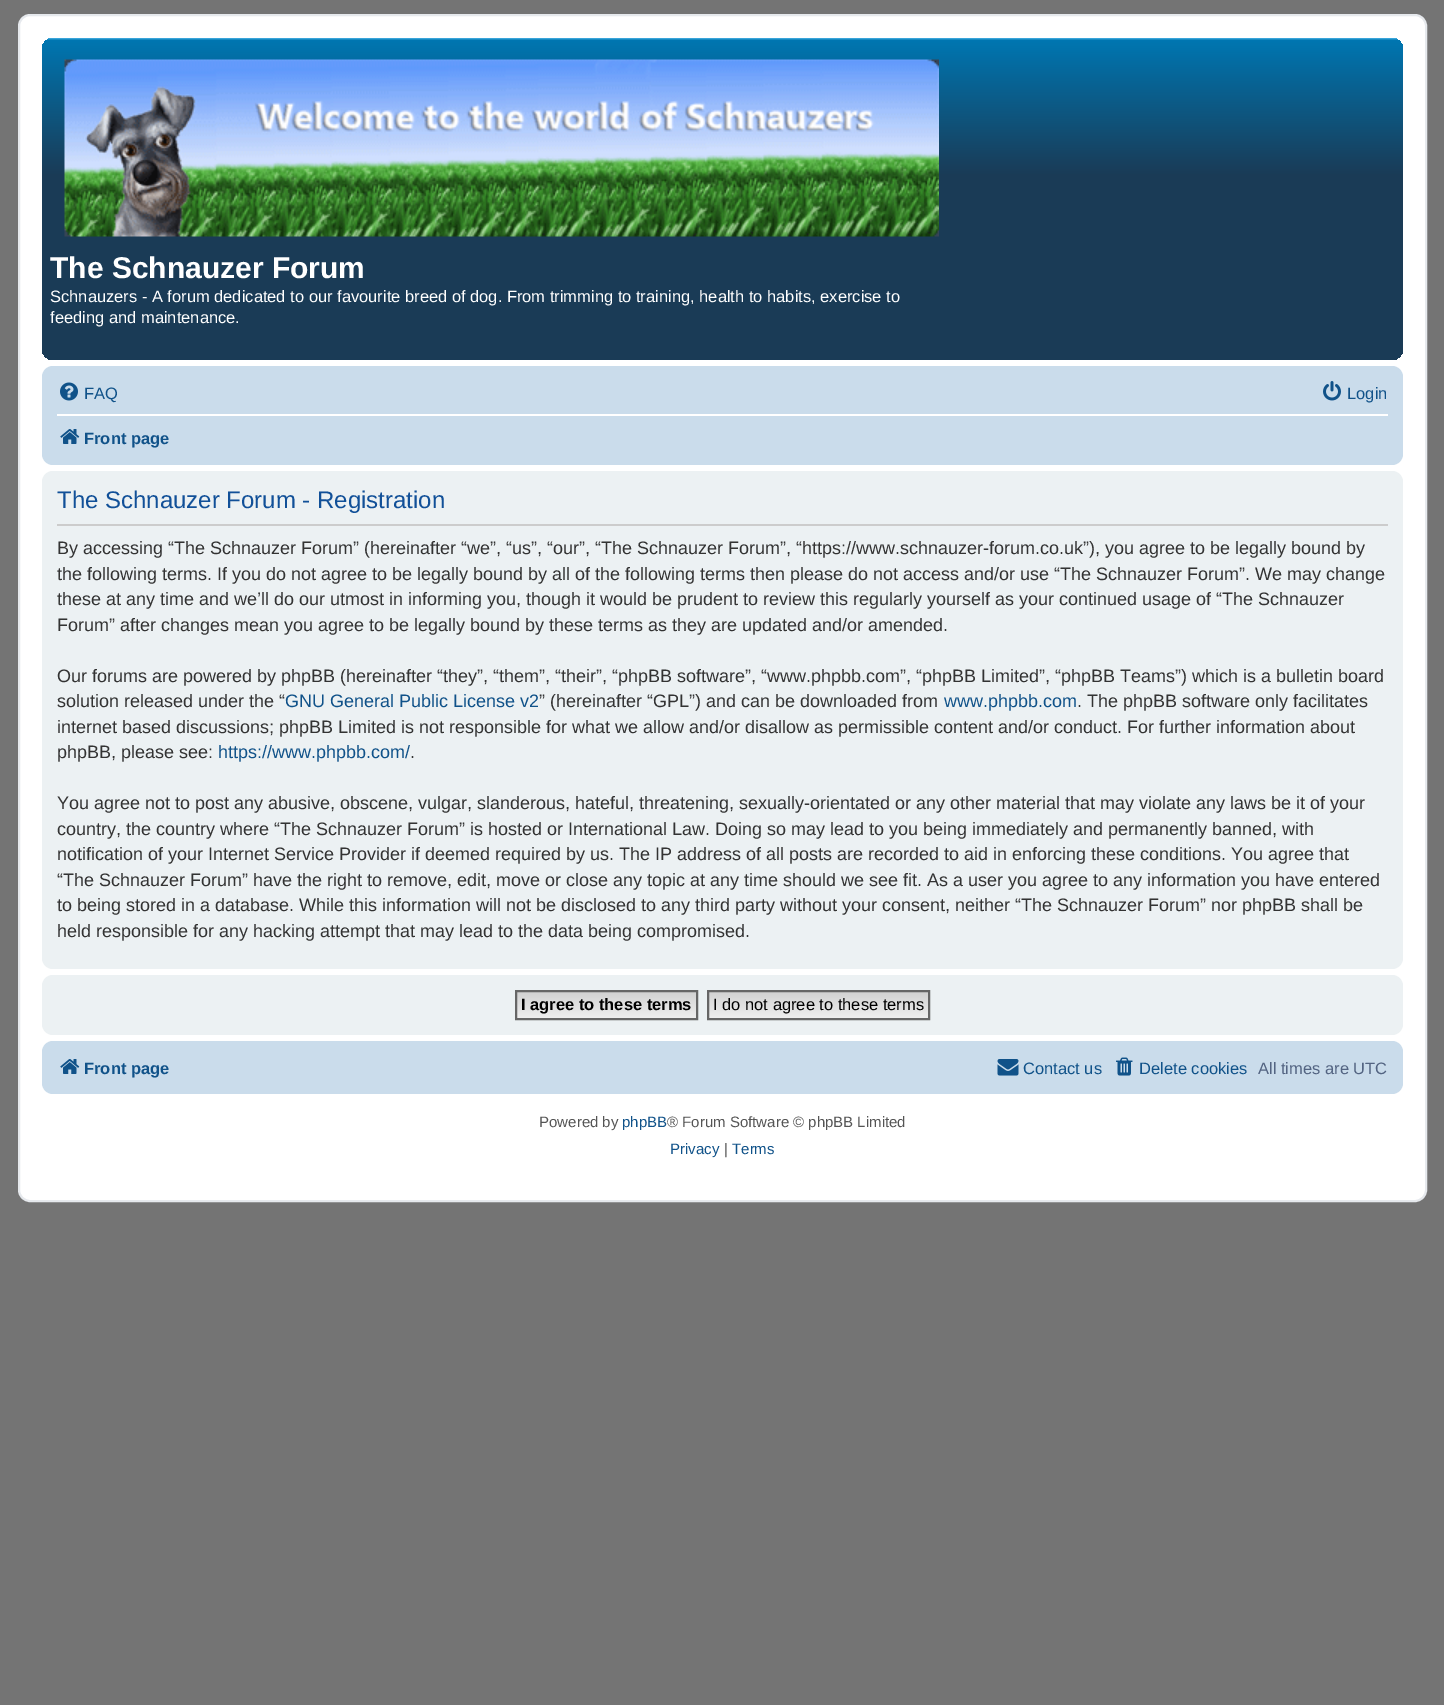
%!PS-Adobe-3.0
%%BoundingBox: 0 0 1444 1705
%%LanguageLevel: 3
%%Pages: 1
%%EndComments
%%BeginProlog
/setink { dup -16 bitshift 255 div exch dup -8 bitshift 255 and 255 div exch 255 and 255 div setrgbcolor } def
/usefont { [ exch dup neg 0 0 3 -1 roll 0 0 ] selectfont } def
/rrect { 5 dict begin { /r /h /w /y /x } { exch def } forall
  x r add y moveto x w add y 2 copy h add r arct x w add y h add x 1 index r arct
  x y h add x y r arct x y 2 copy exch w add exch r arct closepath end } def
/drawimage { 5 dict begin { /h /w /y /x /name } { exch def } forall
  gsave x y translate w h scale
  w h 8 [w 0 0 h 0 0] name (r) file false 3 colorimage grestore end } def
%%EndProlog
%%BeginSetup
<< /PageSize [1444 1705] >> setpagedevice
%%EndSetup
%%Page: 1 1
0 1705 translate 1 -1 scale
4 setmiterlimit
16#747474 setink
0 0 1444 1705 rectfill
16#FFFFFF setink
19 15 1407 1186 11 rrect gsave fill grestore
16#E6E9ED setink
2 setlinewidth
stroke
gsave 42 38 1361 322 11 rrect clip newpath
<< /ShadingType 2 /ColorSpace /DeviceRGB /Coords [722 37 722 360] /Extend [true true] /Function << /FunctionType 3 /Domain [0 1] /Functions [<< /FunctionType 2 /Domain [0 1] /C0 [0.416 0.808 1] /C1 [0 0.463 0.694] /N 1 >> << /FunctionType 2 /Domain [0 1] /C0 [0 0.463 0.694] /C1 [0.102 0.231 0.337] /N 1 >> << /FunctionType 2 /Domain [0 1] /C0 [0.102 0.231 0.337] /C1 [0.102 0.231 0.337] /N 1 >>] /Bounds [0.01 0.43] /Encode [0 1 0 1 0 1] >> >> shfill grestore
(img1.raw) 64 59 875 178 drawimage
/LiberationSans-Bold 30 usefont
16#FFFFFF setink
50 278 moveto (The Schnauzer Forum) show
/LiberationSans-Regular 16.5 usefont
50 302 moveto (Schnauzers - A forum dedicated to our favourite breed of dog. From trimming to training, health to habits, exercise to) show
50 323 moveto (feeding and maintenance.) show
16#CADCEB setink
42 366 1361 99 11 rrect fill
(img2.raw) 60 382 18 19 drawimage
16#105289 setink
84 399 moveto (FAQ) show
(img3.raw) 1323 381 18 20 drawimage
1347 399 moveto (Login) show
16#FFFFFF setink
57 414 1331 2 rectfill
(img4.raw) 60 429 20 15 drawimage
/LiberationSans-Bold 16.5 usefont
16#105289 setink
84 444 moveto (Front page) show
16#ECF1F3 setink
42 471 1361 498 11 rrect fill
16#CCCCCC setink
57 524 1331 2 rectfill
/LiberationSans-Regular 24 usefont
16#115098 setink
57 508 moveto (The Schnauzer Forum - Registration) show
/LiberationSans-Regular 18 usefont
16#333333 setink
[
    [(By accessing “The Schnauzer Forum” \(hereinafter “we”, “us”, “our”, “The Schnauzer Forum”, “https://www.schnauzer-forum.co.uk”\), you agree to be legally bound by) 57 554]
    [(the following terms. If you do not agree to be legally bound by all of the following terms then please do not access and/or use “The Schnauzer Forum”. We may change) 57 580]
    [(these at any time and we’ll do our utmost in informing you, though it would be prudent to review this regularly yourself as your continued usage of “The Schnauzer) 57 605]
    [(Forum” after changes mean you agree to be legally bound by these terms as they are updated and/or amended.) 57 631]
    [(Our forums are powered by phpBB \(hereinafter “they”, “them”, “their”, “phpBB software”, “www.phpbb.com”, “phpBB Limited”, “phpBB Teams”\) which is a bulletin board) 57 682]
    [(solution released under the “) 57 707]
] { aload pop moveto show } forall
16#105289 setink
285 707 moveto (GNU General Public License v2) show
16#333333 setink
539 707 moveto (” \(hereinafter “GPL”\) and can be downloaded from) show
16#105289 setink
944 707 moveto (www.phpbb.com) show
16#333333 setink
[
    [(. The phpBB software only facilitates) 1077 707]
    [(internet based discussions; phpBB Limited is not responsible for what we allow and/or disallow as permissible content and/or conduct. For further information about) 57 733]
    [(phpBB, please see:) 57 758]
] { aload pop moveto show } forall
16#105289 setink
218 758 moveto (https://www.phpbb.com/) show
16#333333 setink
[
    [(.) 410 758]
    [(You agree not to post any abusive, obscene, vulgar, slanderous, hateful, threatening, sexually-orientated or any other material that may violate any laws be it of your) 57 809]
    [(country, the country where “The Schnauzer Forum” is hosted or International Law. Doing so may lead to you being immediately and permanently banned, with) 57 835]
    [(notification of your Internet Service Provider if deemed required by us. The IP address of all posts are recorded to aid in enforcing these conditions. You agree that) 57 860]
    [(“The Schnauzer Forum” have the right to remove, edit, move or close any topic at any time should we see fit. As a user you agree to any information you have entered) 57 886]
    [(to being stored in a database. While this information will not be disclosed to any third party without your consent, neither “The Schnauzer Forum” nor phpBB shall be) 57 911]
    [(held responsible for any hacking attempt that may lead to the data being compromised.) 57 937]
] { aload pop moveto show } forall
16#ECF1F3 setink
42 975 1361 60 11 rrect fill
gsave 517 992 moveto 696 992 lineto 696 1018 lineto 517 1018 lineto closepath clip newpath
<< /ShadingType 2 /ColorSpace /DeviceRGB /Coords [606 992 606 1019] /Extend [true true] /Function << /FunctionType 2 /Domain [0 1] /C0 [0.824 0.824 0.824] /C1 [0.937 0.937 0.937] /N 1 >> >> shfill grestore
16#666666 setink
516 991 181 28 rectstroke
/LiberationSans-Bold 16.5 usefont
16#000000 setink
521 1010 moveto (I agree to these terms) show
gsave 709 992 moveto 928 992 lineto 928 1018 lineto 709 1018 lineto closepath clip newpath
<< /ShadingType 2 /ColorSpace /DeviceRGB /Coords [818 992 818 1019] /Extend [true true] /Function << /FunctionType 2 /Domain [0 1] /C0 [0.824 0.824 0.824] /C1 [0.937 0.937 0.937] /N 1 >> >> shfill grestore
16#666666 setink
708 991 221 28 rectstroke
/LiberationSans-Regular 16.5 usefont
16#000000 setink
713 1010 moveto (I do not agree to these terms) show
16#CADCEB setink
42 1041 1361 53 11 rrect fill
(img4.raw) 60 1059 20 15 drawimage
/LiberationSans-Bold 16.5 usefont
16#105289 setink
84 1074 moveto (Front page) show
(img5.raw) 997 1059 22 17 drawimage
/LiberationSans-Regular 16.5 usefont
1023 1074 moveto (Contact us) show
(img6.raw) 1116 1057 17 19 drawimage
1139 1074 moveto (Delete cookies) show
16#536482 setink
1258 1074 moveto (All times are UTC) show
/LiberationSans-Regular 15 usefont
16#555555 setink
539 1127 moveto (Powered by) show
16#105289 setink
622 1127 moveto (phpBB) show
16#555555 setink
667 1127 moveto (® Forum Software © phpBB Limited) show
16#105289 setink
670 1154 moveto (Privacy) show
16#555555 setink
724 1154 moveto (|) show
16#105289 setink
732 1154 moveto (Terms) show
showpage
%%EOF
